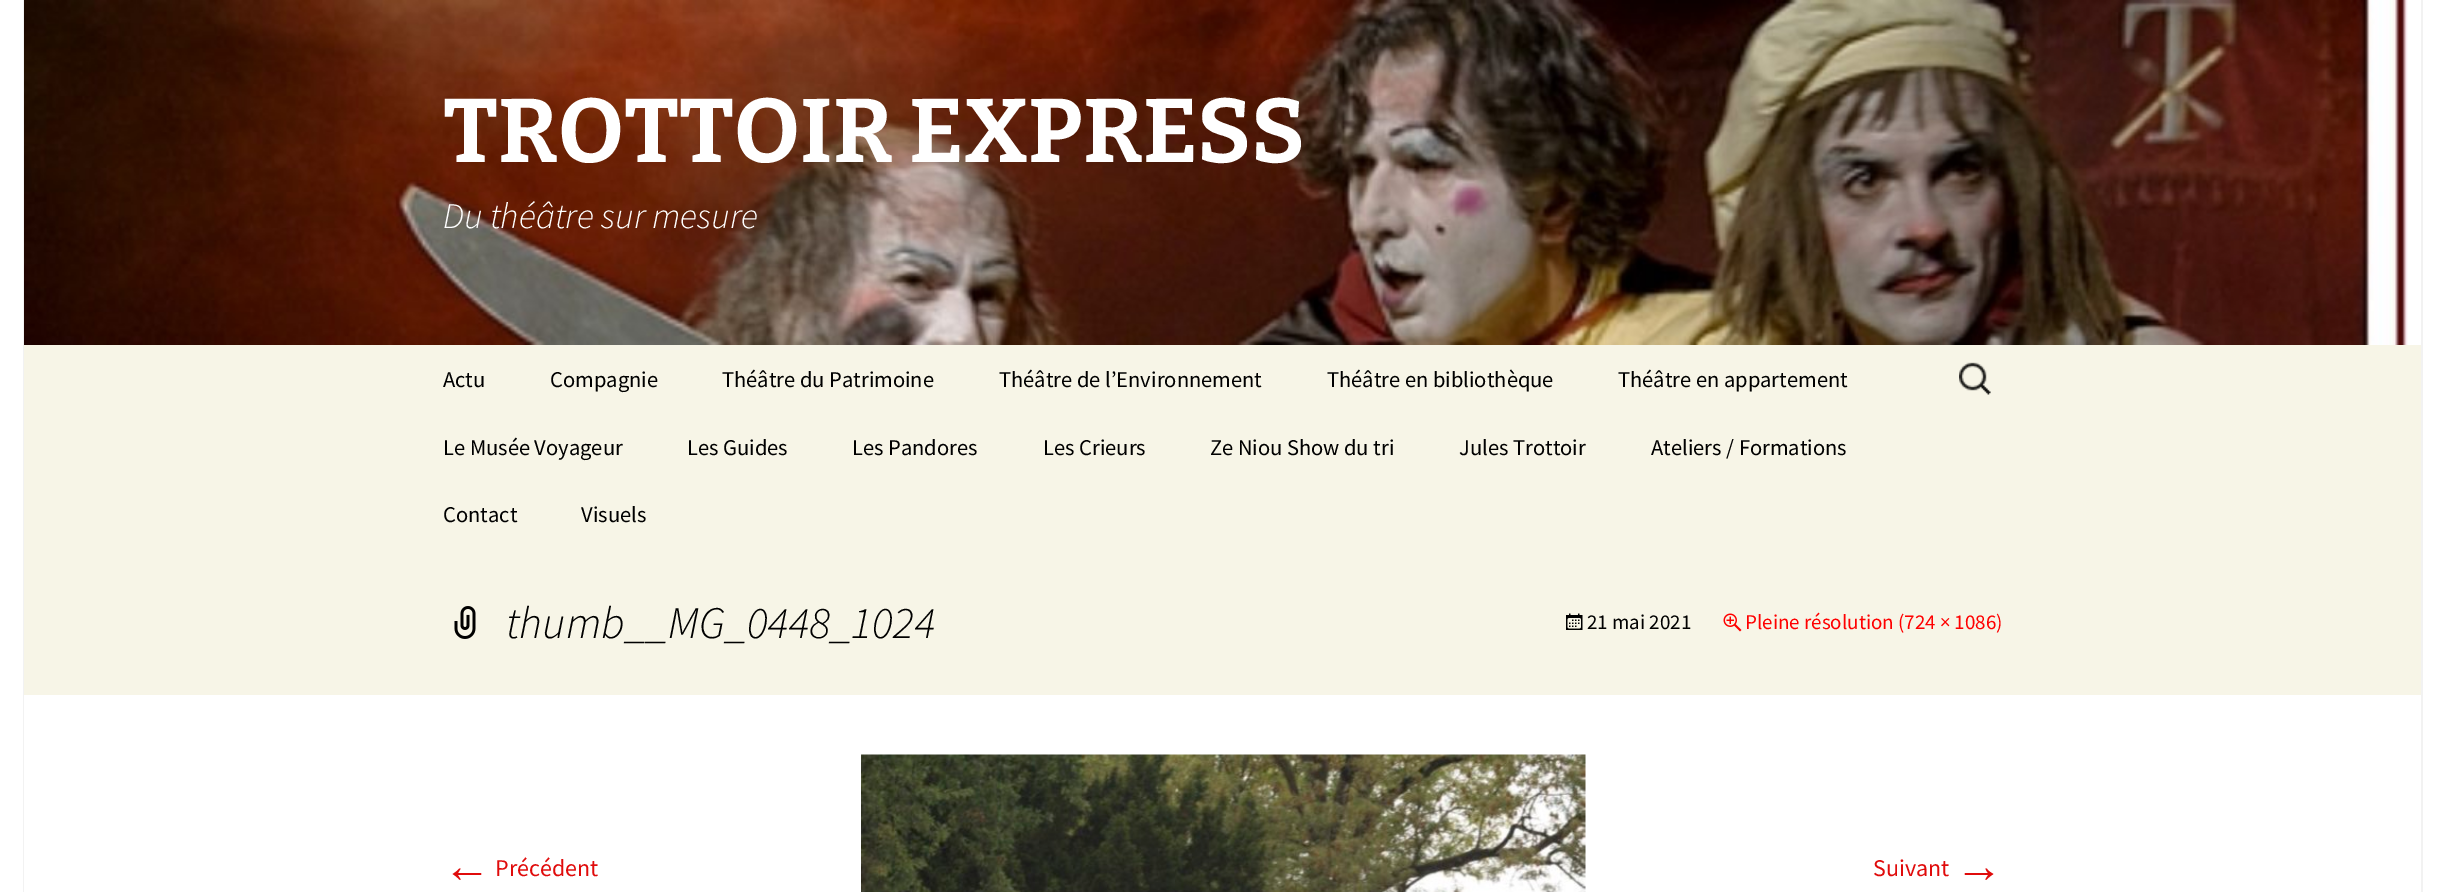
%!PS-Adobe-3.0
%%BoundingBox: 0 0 2444 892
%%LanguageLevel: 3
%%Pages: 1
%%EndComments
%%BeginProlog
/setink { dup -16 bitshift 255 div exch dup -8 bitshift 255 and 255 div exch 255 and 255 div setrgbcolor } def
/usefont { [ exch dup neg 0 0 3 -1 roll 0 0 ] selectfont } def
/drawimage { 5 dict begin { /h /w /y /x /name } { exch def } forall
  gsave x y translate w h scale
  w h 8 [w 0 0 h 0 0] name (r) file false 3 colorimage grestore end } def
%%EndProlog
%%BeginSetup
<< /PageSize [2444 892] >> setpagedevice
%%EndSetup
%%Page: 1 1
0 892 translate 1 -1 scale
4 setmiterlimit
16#FFFFFF setink
0 0 2444 892 rectfill
16#F2F2F2 setink
2421 0 2 892 rectfill
23 0 1 892 rectfill
(img1.raw) 24 0 2384 345 drawimage
/Bitter-Bold 90 usefont
16#FFFFFF setink
443 162 moveto (TROTTOIR EXPRESS) show
/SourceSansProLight-LightItalic 36 usefont
443 228 moveto (Du théâtre sur mesure) show
16#F7F5E7 setink
24 345 2397 350 rectfill
/SourceSansPro-Regular 22.5 usefont
16#000000 setink
[
    [(Actu) 443 387]
    [(Compagnie) 550 387]
    [(Théâtre du Patrimoine) 722 387]
    [(Théâtre de l’Environnement) 999 387]
    [(Théâtre en bibliothèque) 1327 387]
    [(Théâtre en appartement) 1618 387]
    [(Le Musée Voyageur) 443 455]
    [(Les Guides) 687 455]
    [(Les Pandores) 852 455]
    [(Les Crieurs) 1043 455]
    [(Ze Niou Show du tri) 1210 455]
    [(Jules Trottoir) 1459 455]
    [(Ateliers / Formations) 1651 455]
    [(Contact) 443 522]
    [(Visuels) 581 522]
] { aload pop moveto show } forall
(img2.raw) 1959 362 32 33 drawimage
(img3.raw) 454 606 22 33 drawimage
/SourceSansProLight-LightItalic 45 usefont
506 638 moveto (thumb__MG_0448_1024) show
(img4.raw) 1566 613 17 17 drawimage
/SourceSansPro-Regular 21 usefont
1587 629 moveto (21 mai 2021) show
(img5.raw) 1723 613 19 19 drawimage
16#FF0000 setink
1745 629 moveto (Pleine résolution \(724 × 1086\)) show
(img6.raw) 861 754 725 138 drawimage
/LiberationSans-Regular 48 usefont
16#E00B0B setink
443 882 moveto (←) show
/SourceSansPro-Regular 24 usefont
495 876 moveto (Précédent) show
1873 876 moveto (Suivant) show
/LiberationSans-Regular 48 usefont
1955 882 moveto (→) show
showpage
%%EOF
